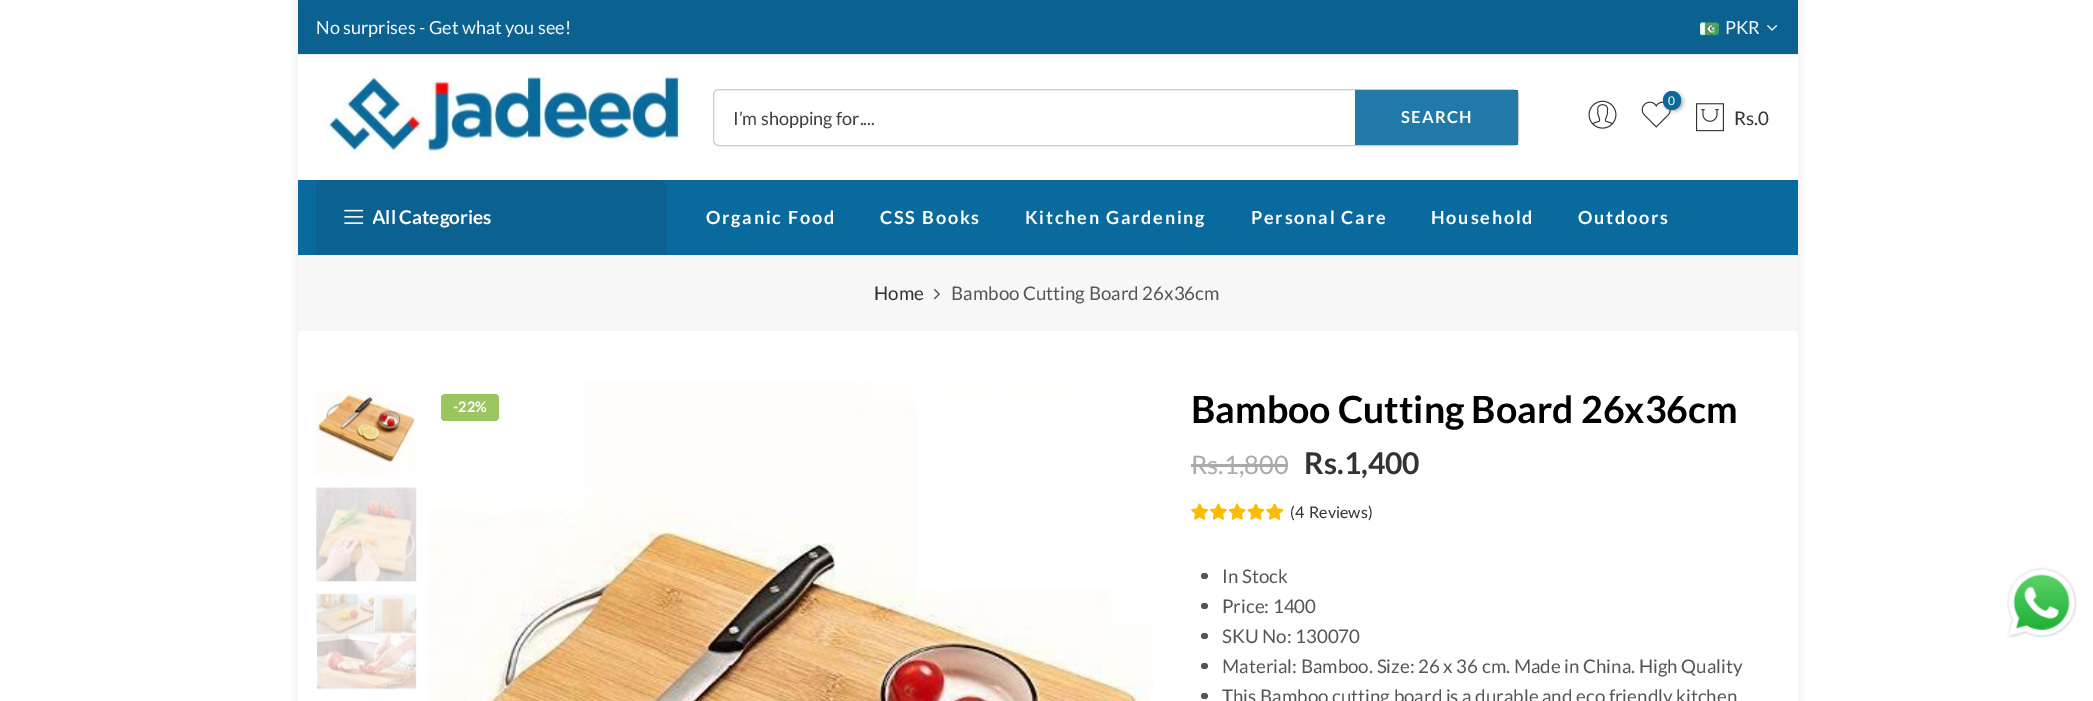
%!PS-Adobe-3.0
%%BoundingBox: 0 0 2093 701
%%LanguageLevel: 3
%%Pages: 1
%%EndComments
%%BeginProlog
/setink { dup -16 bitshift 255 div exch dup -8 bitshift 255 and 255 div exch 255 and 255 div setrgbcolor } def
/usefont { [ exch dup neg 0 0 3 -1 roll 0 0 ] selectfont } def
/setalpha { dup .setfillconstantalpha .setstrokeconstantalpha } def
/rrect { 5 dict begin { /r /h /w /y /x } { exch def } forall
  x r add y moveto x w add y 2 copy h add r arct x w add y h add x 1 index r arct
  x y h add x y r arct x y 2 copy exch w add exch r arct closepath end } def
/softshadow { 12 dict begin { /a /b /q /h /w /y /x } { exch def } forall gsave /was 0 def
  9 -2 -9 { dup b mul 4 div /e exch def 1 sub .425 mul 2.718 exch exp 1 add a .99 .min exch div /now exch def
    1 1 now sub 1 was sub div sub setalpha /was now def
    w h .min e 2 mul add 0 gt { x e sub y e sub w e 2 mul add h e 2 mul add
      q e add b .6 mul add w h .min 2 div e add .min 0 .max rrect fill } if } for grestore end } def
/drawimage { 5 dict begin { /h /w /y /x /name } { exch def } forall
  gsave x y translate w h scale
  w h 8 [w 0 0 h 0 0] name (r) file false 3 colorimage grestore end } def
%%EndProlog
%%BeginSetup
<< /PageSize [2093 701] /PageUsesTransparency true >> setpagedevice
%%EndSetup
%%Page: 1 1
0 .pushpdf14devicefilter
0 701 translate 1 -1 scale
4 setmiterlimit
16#FFFFFF setink
0 0 2093 701 rectfill
16#000000 setink
298 1 1500 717 0 5.5 0.08 softshadow
[
    [298 55 1500 646 16#FFFFFF]
    [298 0 1500 54 16#0B618F]
    [298 54 1500 1 16#ECECEC]
] { aload pop setink rectfill } forall
/Lato-Regular 18.1 usefont
16#F5F9FA setink
316 34 moveto (No surprises - Get what you see!) show
(img1.raw) 1700 22 19 14 drawimage
1725 34 moveto (PKR) show
(img2.raw) 1767 25 11 6 drawimage
(img3.raw) 325 73 355 81 drawimage
16#CCCCCC setink
713.5 89.5 805 56 5.5 rrect stroke
16#404040 setink
733 125 moveto (I’m shopping for....) show
0.9 setalpha
16#086A9D setink
1355 90 163 55 rectfill
/Lato-Bold 16.5 usefont
1 setalpha
16#FFFFFF setink
1401 123 moveto 1.25 0 (SEARCH) ashow
(img4.raw) 1588 100 29 29 drawimage
(img5.raw) 1641 101 30 27 drawimage
16#000000 setink
1664 93 19 18 9 2 0.3 softshadow
16#086A9D setink
1663 91 18 19 9 rrect fill
/Lato-Regular 12 usefont
16#FFFFFF setink
1668 105 moveto (0) show
(img6.raw) 1696 103 28 29 drawimage
/Lato-Regular 18.75 usefont
16#333333 setink
1734 125 moveto (Rs.0) show
16#086A9D setink
298 180 1500 75 rectfill
16#0B618F setink
324 180 moveto 658 180 lineto 662.5 180 666 183.5 666 188 curveto 666 255 lineto 316 255 lineto 316 188 lineto 316 183.5 319.5 180 324 180 curveto closepath fill
(img7.raw) 344 209 20 15 drawimage
gsave
373 204 118 27 rectclip
/Lato-Bold 19 usefont
16#FFFFFF setink
372 224 moveto (All Categories) show
grestore
/Lato-Bold 18.1 usefont
16#FFFFFF setink
706 224 moveto 1.75 0 (Organic Food) ashow
880 224 moveto 1.75 0 (CSS Books) ashow
1025 224 moveto 1.75 0 (Kitchen Gardening) ashow
1251 224 moveto 1.75 0 (Personal Care) ashow
1431 224 moveto 1.75 0 (Household) ashow
1578 224 moveto 1.75 0 (Outdoors) ashow
16#F7F7F7 setink
298 255 1500 76 rectfill
/Lato-Regular 18.75 usefont
16#333333 setink
874 300 moveto (Home) show
(img8.raw) 933 288 7 12 drawimage
16#555555 setink
951 300 moveto (Bamboo Cutting Board 26x36cm) show
(img9.raw) 316 390 100 85 drawimage
(img10.raw) 316 487 101 95 drawimage
(img11.raw) 316 593 101 97 drawimage
(img12.raw) 429 382 724 319 drawimage
16#9CC560 setink
441 394 58 27 4 rrect fill
/Lato-Bold 14.5 usefont
16#FFFFFF setink
453 412 moveto (-22%) show
/Lato-Bold 37.5 usefont
16#000000 setink
1191 423 moveto (Bamboo Cutting Board 26x36cm) show
/Lato-Regular 25.5 usefont
16#AAAAAA setink
1191 474 moveto (Rs.1,800) show
1191 464 97 3 rectfill
/Lato-Bold 30 usefont
16#333333 setink
1304 474 moveto (Rs.1,400) show
(img13.raw) 1191 503 17 17 drawimage
(img14.raw) 1210 503 17 17 drawimage
(img15.raw) 1228 503 18 17 drawimage
(img16.raw) 1247 503 18 17 drawimage
(img17.raw) 1266 503 17 17 drawimage
(img18.raw) 1266 504 17 16 drawimage
/Lato-Regular 16 usefont
1290 518 moveto (\(4) show
1309 518 moveto (Reviews\)) show
16#555555 setink
1201 573 7 6 3 rrect fill
/Lato-Regular 18.75 usefont
1222 583 moveto (In Stock) show
1201 603 7 6 3 rrect fill
1222 613 moveto (Price: 1400) show
1201 633 7 6 3 rrect fill
1222 643 moveto (SKU No: 130070) show
1201 663 7 6 3 rrect fill
1222 673 moveto (Material: Bamboo. Size: 26 x 36 cm. Made in China. High Quality) show
1201 693 7 6 3 rrect fill
1222 703 moveto (This Bamboo cutting board is a durable and eco friendly kitchen) show
(img19.raw) 2007 567 71 71 drawimage
.poppdf14devicefilter showpage
%%EOF
